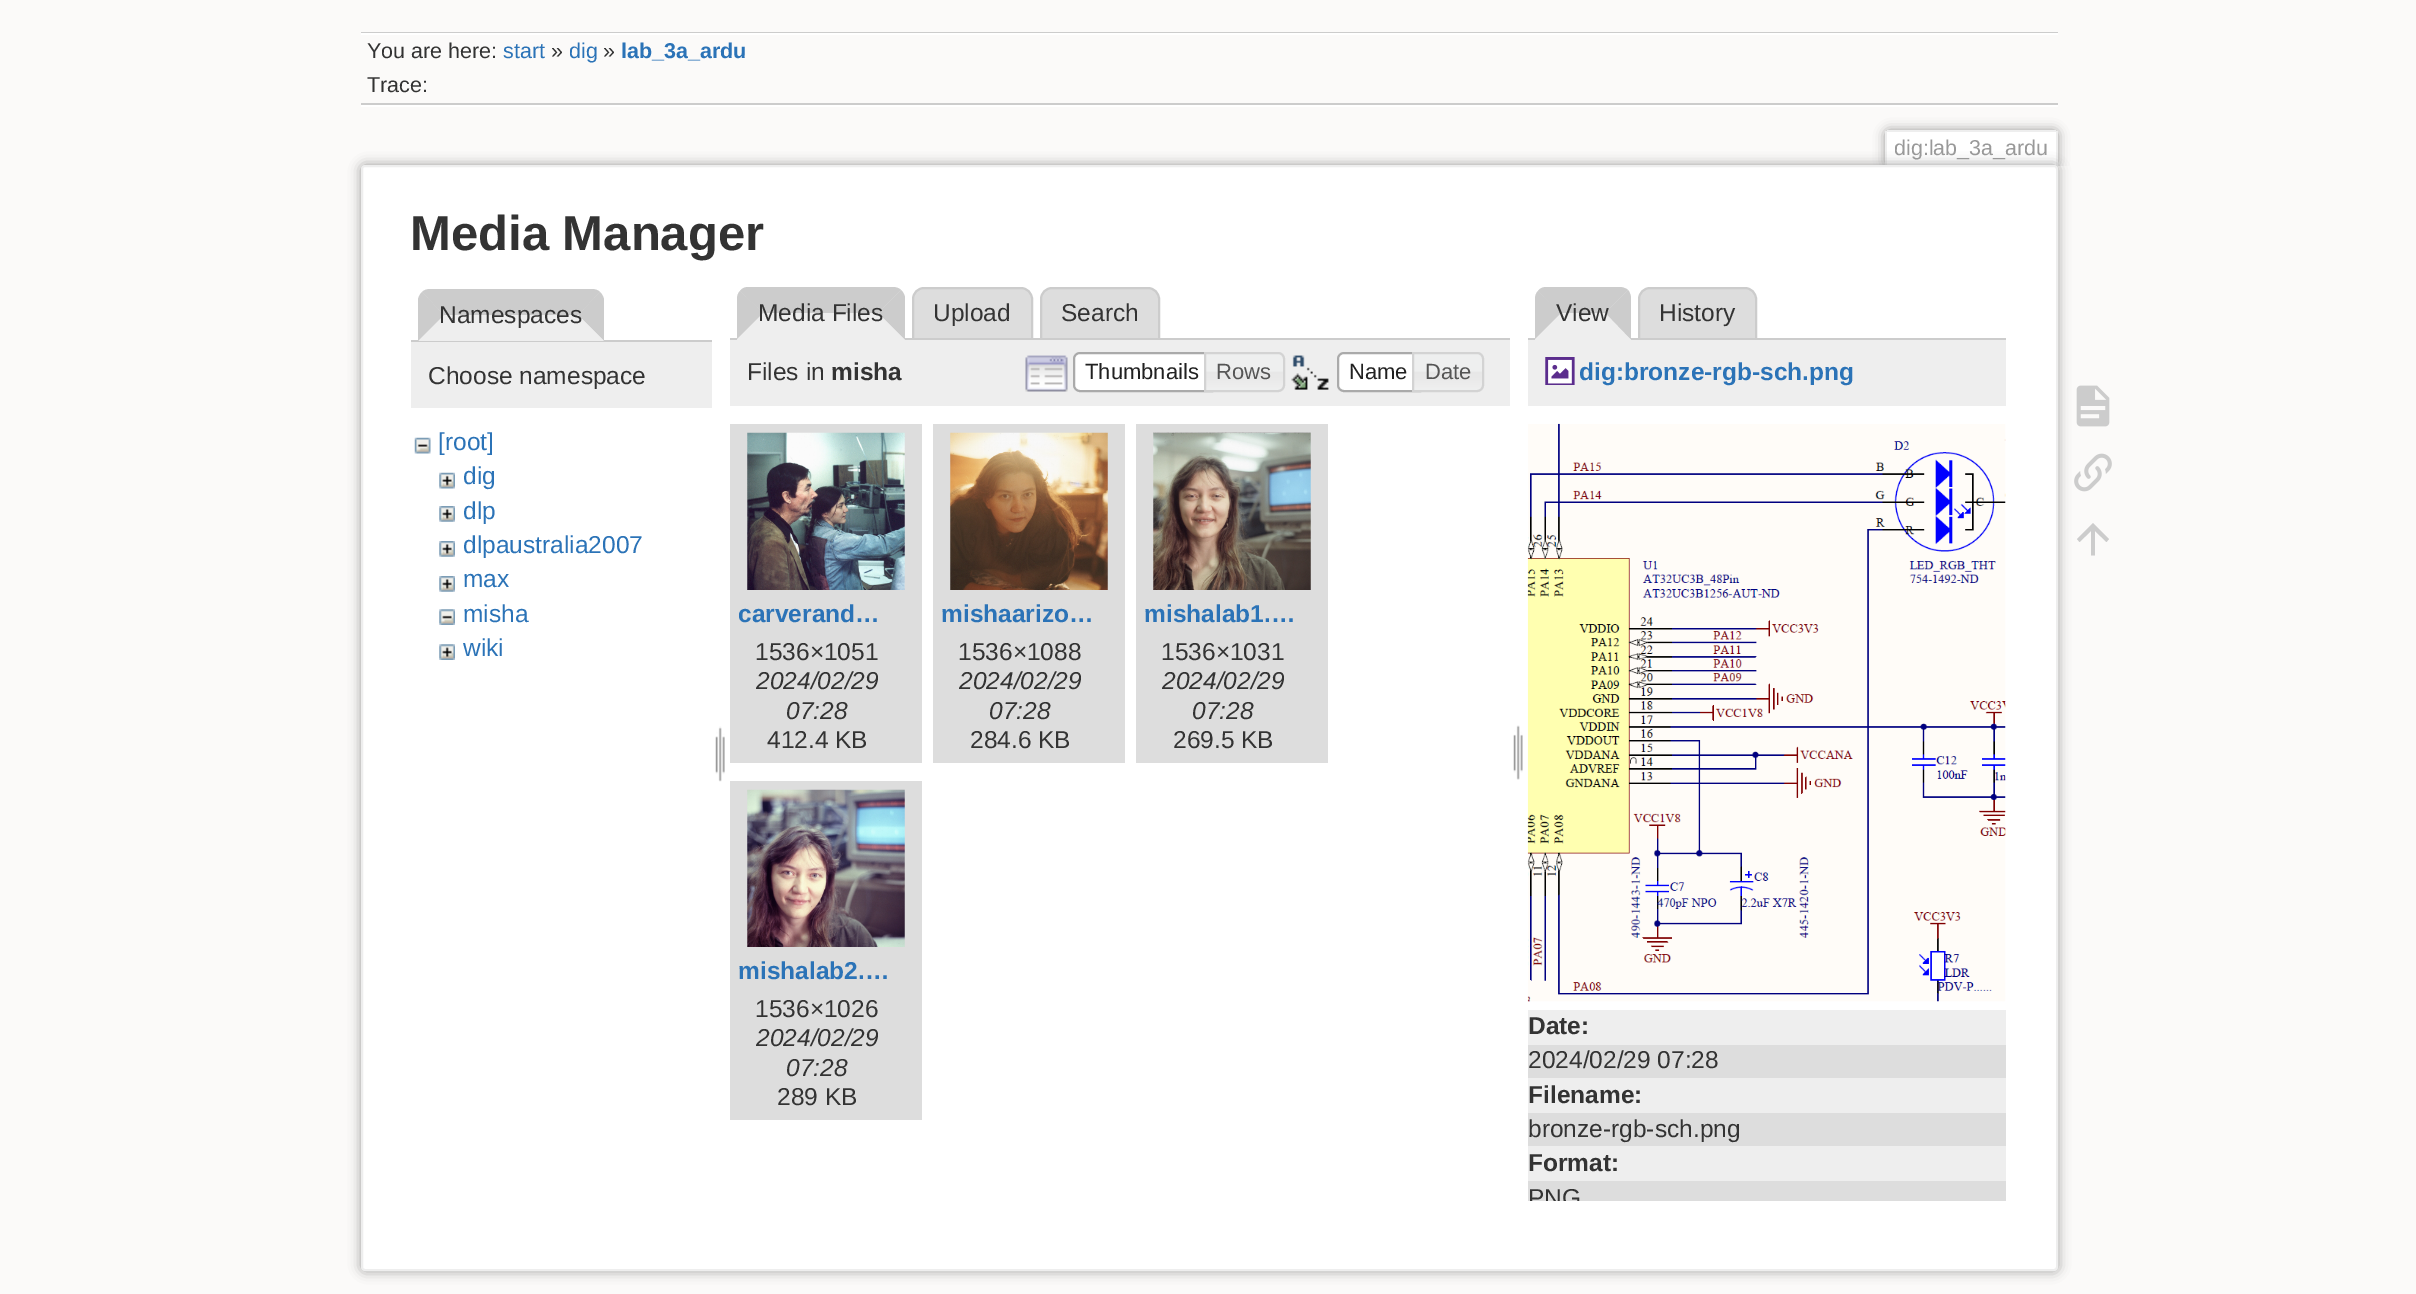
%!PS-Adobe-3.0
%%BoundingBox: 0 0 2416 1294
%%LanguageLevel: 3
%%Pages: 1
%%EndComments
%%BeginProlog
/setink { dup -16 bitshift 255 div exch dup -8 bitshift 255 and 255 div exch 255 and 255 div setrgbcolor } def
/usefont { [ exch dup neg 0 0 3 -1 roll 0 0 ] selectfont } def
/setalpha { dup .setfillconstantalpha .setstrokeconstantalpha } def
/rrect { 5 dict begin { /r /h /w /y /x } { exch def } forall
  x r add y moveto x w add y 2 copy h add r arct x w add y h add x 1 index r arct
  x y h add x y r arct x y 2 copy exch w add exch r arct closepath end } def
/softshadow { 12 dict begin { /a /b /q /h /w /y /x } { exch def } forall gsave /was 0 def
  9 -2 -9 { dup b mul 4 div /e exch def 1 sub .425 mul 2.718 exch exp 1 add a .99 .min exch div /now exch def
    1 1 now sub 1 was sub div sub setalpha /was now def
    w h .min e 2 mul add 0 gt { x e sub y e sub w e 2 mul add h e 2 mul add
      q e add b .6 mul add w h .min 2 div e add .min 0 .max rrect fill } if } for grestore end } def
/drawimage { 5 dict begin { /h /w /y /x /name } { exch def } forall
  gsave x y translate w h scale
  w h 8 [w 0 0 h 0 0] name (r) file false 3 colorimage grestore end } def
%%EndProlog
%%BeginSetup
<< /PageSize [2416 1294] /PageUsesTransparency true >> setpagedevice
%%EndSetup
%%Page: 1 1
0 .pushpdf14devicefilter
0 1294 translate 1 -1 scale
4 setmiterlimit
16#FBFAF9 setink
0 0 2416 1294 rectfill
[
    [361 32 1697 1 16#CCCCCC]
    [361 105 1697 2 16#FFFFFF]
    [361 33 1697 2 16#FFFFFF]
] { aload pop setink rectfill } forall
/LiberationSans-Regular 21.5 usefont
16#333333 setink
367 58 moveto (You are here:) show
16#2B73B7 setink
503 58 moveto (start) show
16#333333 setink
551 58 moveto (») show
16#2B73B7 setink
569 58 moveto (dig) show
16#333333 setink
603 58 moveto (») show
/LiberationSans-Bold 21.5 usefont
16#2B73B7 setink
621 58 moveto (lab_3a_ardu) show
16#CCCCCC setink
361 103 1697 2 rectfill
/LiberationSans-Regular 21.5 usefont
16#333333 setink
367 92 moveto (Trace:) show
gsave
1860 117 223 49 rectclip
16#999999 setink
1885 130 173 36 4 5.5 1 softshadow
grestore
16#FFFFFF setink
1889 131 moveto 2054 131 lineto 2055 131 2056 132 2056 133 curveto 2056 166 lineto 1887 166 lineto 1887 133 lineto 1887 132 1888 131 1889 131 curveto closepath fill
[
    [1887 130 169 2 16#EEEEEE]
    [2056 131 2 35 16#EEEEEE]
    [1885 131 2 35 16#EEEEEE]
] { aload pop setink rectfill } forall
16#999999 setink
1894 155 moveto (dig:lab_3a_ardu) show
361 165 1697 1106 4 6 1 softshadow
16#FFFFFF setink
362 166 1695 1104 3 rrect gsave fill grestore
16#EEEEEE setink
2 setlinewidth
stroke
/LiberationSans-Bold 49 usefont
16#333333 setink
410 250 moveto (Media Manager) show
16#CCCCCC setink
430 289 moveto 427 289 424 290 422 292 curveto 444 315 lineto 578 315 lineto 600 292 lineto 598 290 595 289 592 289 curveto closepath fill
411 340 301 2 rectfill
604 341 moveto 578 315 lineto 600 292 lineto 602 294 603 296 604 299 curveto closepath fill
16#EEEEEE setink
604 341 moveto 578 315 lineto 444 315 lineto 418 341 lineto closepath fill
16#CCCCCC setink
418 299 moveto 419 296 420 294 422 292 curveto 444 315 lineto 418 341 lineto closepath fill
/LiberationSans-Regular 24.5 usefont
16#333333 setink
439 323 moveto (Namespaces) show
16#EEEEEE setink
411 342 301 66 rectfill
16#333333 setink
428 384 moveto (Choose namespace) show
(img1.raw) 414 437 17 17 drawimage
16#2B73B7 setink
438 450 moveto ([root]) show
(img2.raw) 439 472 16 17 drawimage
463 484 moveto (dig) show
(img3.raw) 439 506 16 16 drawimage
463 519 moveto (dlp) show
(img3.raw) 439 541 16 16 drawimage
463 553 moveto (dlpaustralia2007) show
(img3.raw) 439 576 16 16 drawimage
463 587 moveto (max) show
(img4.raw) 439 609 16 16 drawimage
463 622 moveto (misha) show
(img5.raw) 439 644 16 16 drawimage
463 656 moveto (wiki) show
(img6.raw) 715 726 10 56 drawimage
16#DDDDDD setink
924 288 moveto 1021 288 lineto 1027 288 1032 293 1032 299 curveto 1032 339 lineto 913 339 lineto 913 299 lineto 913 293 918 288 924 288 curveto closepath gsave fill grestore
16#CCCCCC setink
stroke
16#DDDDDD setink
1052 288 moveto 1148 288 lineto 1154 288 1159 293 1159 299 curveto 1159 339 lineto 1041 339 lineto 1041 299 lineto 1041 293 1046 288 1052 288 curveto closepath gsave fill grestore
16#CCCCCC setink
stroke
730 338 780 2 rectfill
16#EEEEEE setink
749 287 moveto 893 287 lineto 899.5 287 905 292.5 905 299 curveto 905 340 lineto 737 340 lineto 737 299 lineto 737 292.5 742.5 287 749 287 curveto closepath fill
16#CCCCCC setink
749 287 moveto 892 287 lineto 896 287 899 288 901 290 curveto 878 313 lineto 763 313 lineto 740 291 lineto 742 288 745 287 749 287 curveto closepath fill
901 290 moveto 878 313 lineto 905 340 lineto 905 297 lineto 904 294 903 292 901 290 curveto closepath fill
16#EEEEEE setink
905 340 moveto 878 313 lineto 763 313 lineto 737 340 lineto closepath fill
16#CCCCCC setink
740 291 moveto 738 293 737 296 737 299 curveto 737 339 lineto 763 313 lineto closepath fill
16#333333 setink
[
    [(Media Files) 758 321]
    [(Upload) 933 321]
    [(Search) 1061 321]
] { aload pop moveto show } forall
16#EEEEEE setink
730 340 780 66 rectfill
16#333333 setink
747 380 moveto (Files in) show
/LiberationSans-Bold 24.5 usefont
831 380 moveto (misha) show
(img7.raw) 1025 355 43 37 drawimage
16#FFFFFF setink
1080 352 moveto 1213 352 lineto 1213 392 lineto 1080 392 lineto 1076 392 1073 389 1073 385 curveto 1073 359 lineto 1073 355 1076 352 1080 352 curveto closepath fill
(img8.raw) 1073 352 5 40 drawimage
16#AAAAAA setink
1080 353 moveto 1212 353 lineto 1212 391 lineto 1080 391 lineto 1076.5 391 1074 388.5 1074 385 curveto 1074 359 lineto 1074 355.5 1076.5 353 1080 353 curveto closepath stroke
/LiberationSans-Regular 22 usefont
16#212121 setink
1085 379 moveto (Thumbnails) show
(img9.raw) 1206 352 78 40 drawimage
16#D3D3D3 setink
1205 353 moveto 1278 353 lineto 1281.5 353 1284 355.5 1284 359 curveto 1284 385 lineto 1284 388.5 1281.5 391 1278 391 curveto 1205 391 lineto closepath stroke
16#555555 setink
1216 379 moveto (Rows) show
(img10.raw) 1291 355 38 35 drawimage
16#FFFFFF setink
1344 352 moveto 1421 352 lineto 1421 392 lineto 1344 392 lineto 1340 392 1337 389 1337 385 curveto 1337 359 lineto 1337 355 1340 352 1344 352 curveto closepath fill
(img11.raw) 1337 352 5 40 drawimage
16#AAAAAA setink
1344 353 moveto 1420 353 lineto 1420 391 lineto 1344 391 lineto 1340.5 391 1338 388.5 1338 385 curveto 1338 359 lineto 1338 355.5 1340.5 353 1344 353 curveto closepath stroke
16#212121 setink
1349 379 moveto (Name) show
(img12.raw) 1414 352 70 40 drawimage
16#D3D3D3 setink
1413 353 moveto 1477 353 lineto 1480.5 353 1483 355.5 1483 359 curveto 1483 385 lineto 1483 388.5 1480.5 391 1477 391 curveto 1413 391 lineto closepath stroke
16#555555 setink
1425 379 moveto (Date) show
16#DDDDDD setink
730 424 192 339 rectfill
(img13.raw) 747 432 158 158 drawimage
/LiberationSans-Bold 24.5 usefont
16#2B73B7 setink
738 622 moveto (carverand…) show
/LiberationSans-Regular 24.5 usefont
16#333333 setink
755 660 moveto (1536×1051) show
/LiberationSans-Italic 24.5 usefont
756 689 moveto (2024/02/29) show
786 719 moveto (07:28) show
/LiberationSans-Regular 24.5 usefont
767 748 moveto (412.4 KB) show
16#DDDDDD setink
933 424 192 339 rectfill
(img14.raw) 950 432 158 158 drawimage
/LiberationSans-Bold 24.5 usefont
16#2B73B7 setink
941 622 moveto (mishaarizo…) show
/LiberationSans-Regular 24.5 usefont
16#333333 setink
958 660 moveto (1536×1088) show
/LiberationSans-Italic 24.5 usefont
959 689 moveto (2024/02/29) show
989 719 moveto (07:28) show
/LiberationSans-Regular 24.5 usefont
970 748 moveto (284.6 KB) show
16#DDDDDD setink
1136 424 192 339 rectfill
(img15.raw) 1153 432 158 158 drawimage
/LiberationSans-Bold 24.5 usefont
16#2B73B7 setink
1144 622 moveto (mishalab1.…) show
/LiberationSans-Regular 24.5 usefont
16#333333 setink
1161 660 moveto (1536×1031) show
/LiberationSans-Italic 24.5 usefont
1162 689 moveto (2024/02/29) show
1192 719 moveto (07:28) show
/LiberationSans-Regular 24.5 usefont
1173 748 moveto (269.5 KB) show
16#DDDDDD setink
730 781 192 339 rectfill
(img16.raw) 747 789 158 158 drawimage
/LiberationSans-Bold 24.5 usefont
16#2B73B7 setink
738 979 moveto (mishalab2.…) show
/LiberationSans-Regular 24.5 usefont
16#333333 setink
755 1017 moveto (1536×1026) show
/LiberationSans-Italic 24.5 usefont
756 1046 moveto (2024/02/29) show
786 1076 moveto (07:28) show
/LiberationSans-Regular 24.5 usefont
777 1105 moveto (289 KB) show
(img17.raw) 1513 725 10 55 drawimage
16#DDDDDD setink
1650 288 moveto 1745 288 lineto 1751 288 1756 293 1756 299 curveto 1756 339 lineto 1639 339 lineto 1639 299 lineto 1639 293 1644 288 1650 288 curveto closepath gsave fill grestore
16#CCCCCC setink
stroke
1528 338 478 2 rectfill
16#EEEEEE setink
1547 287 moveto 1619 287 lineto 1625.5 287 1631 292.5 1631 299 curveto 1631 340 lineto 1535 340 lineto 1535 299 lineto 1535 292.5 1540.5 287 1547 287 curveto closepath fill
16#CCCCCC setink
1547 287 moveto 1619 287 lineto 1622 287 1626 288 1628 290 curveto 1605 313 lineto 1561 313 lineto 1538 291 lineto 1540 288 1543 287 1547 287 curveto closepath fill
1628 290 moveto 1605 313 lineto 1631 340 lineto 1631 299 lineto 1631 296 1630 292 1628 290 curveto closepath fill
16#EEEEEE setink
1631 340 moveto 1605 313 lineto 1561 313 lineto 1535 339 lineto closepath fill
16#CCCCCC setink
1538 291 moveto 1536 293 1535 296 1535 299 curveto 1535 339 lineto 1561 313 lineto closepath fill
16#333333 setink
1556 321 moveto (View) show
1659 321 moveto (History) show
16#EEEEEE setink
1528 340 478 66 rectfill
(img18.raw) 1545 357 30 28 drawimage
/LiberationSans-Bold 24.5 usefont
16#2B73B7 setink
1579 380 moveto (dig:bronze-rgb-sch.png) show
(img19.raw) 1527 423 479 579 drawimage
16#EEEEEE setink
1528 1010 478 35 rectfill
16#333333 setink
1528 1034 moveto (Date:) show
16#DDDDDD setink
1528 1045 478 33 rectfill
/LiberationSans-Regular 24.5 usefont
16#333333 setink
1528 1068 moveto (2024/02/29 07:28) show
16#EEEEEE setink
1528 1078 478 35 rectfill
/LiberationSans-Bold 24.5 usefont
16#333333 setink
1528 1103 moveto (Filename:) show
16#DDDDDD setink
1528 1113 478 33 rectfill
/LiberationSans-Regular 24.5 usefont
16#333333 setink
1528 1137 moveto (bronze-rgb-sch.png) show
16#EEEEEE setink
1528 1146 478 35 rectfill
/LiberationSans-Bold 24.5 usefont
16#333333 setink
1528 1171 moveto (Format:) show
16#DDDDDD setink
1528 1181 478 20 rectfill
gsave
1528 424 478 777 rectclip
/LiberationSans-Regular 24.5 usefont
16#333333 setink
1528 1206 moveto (PNG) show
grestore
(img20.raw) 2076 385 34 42 drawimage
(img21.raw) 2074 453 38 39 drawimage
16#CCCCCC setink
2095 555.5 moveto 2091 555.5 lineto 2091 531 lineto 2079.5 542 lineto 2077 539 lineto 2093 523 lineto 2109 539 lineto 2106.5 542 lineto 2095 531 lineto closepath fill
.poppdf14devicefilter showpage
%%EOF
